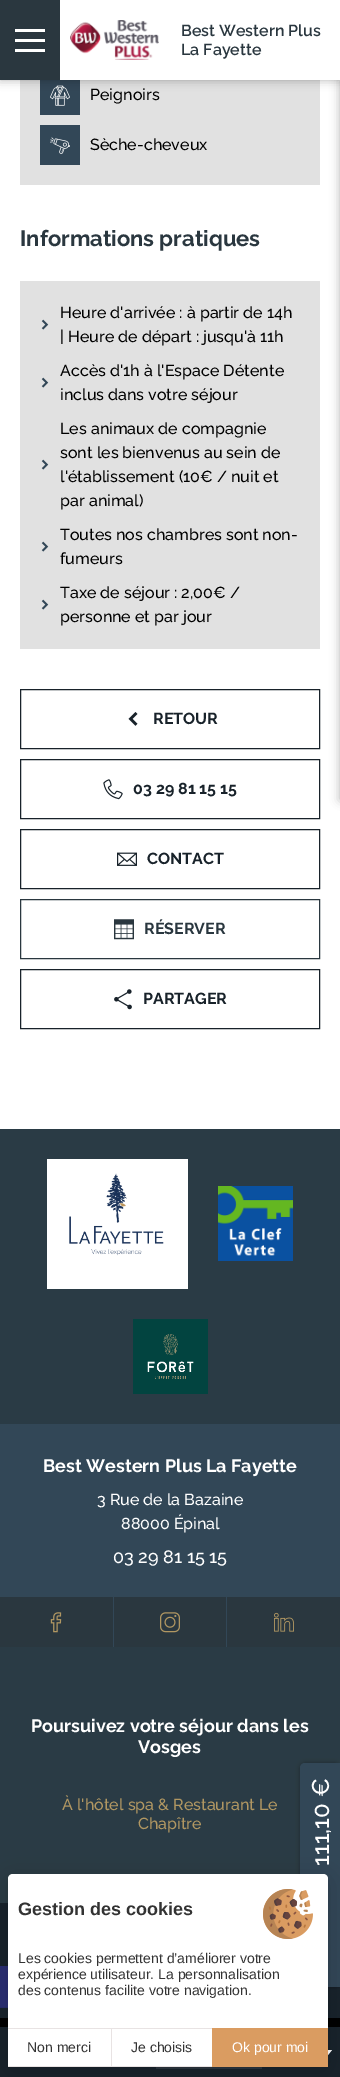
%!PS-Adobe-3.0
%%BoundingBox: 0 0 340 2077
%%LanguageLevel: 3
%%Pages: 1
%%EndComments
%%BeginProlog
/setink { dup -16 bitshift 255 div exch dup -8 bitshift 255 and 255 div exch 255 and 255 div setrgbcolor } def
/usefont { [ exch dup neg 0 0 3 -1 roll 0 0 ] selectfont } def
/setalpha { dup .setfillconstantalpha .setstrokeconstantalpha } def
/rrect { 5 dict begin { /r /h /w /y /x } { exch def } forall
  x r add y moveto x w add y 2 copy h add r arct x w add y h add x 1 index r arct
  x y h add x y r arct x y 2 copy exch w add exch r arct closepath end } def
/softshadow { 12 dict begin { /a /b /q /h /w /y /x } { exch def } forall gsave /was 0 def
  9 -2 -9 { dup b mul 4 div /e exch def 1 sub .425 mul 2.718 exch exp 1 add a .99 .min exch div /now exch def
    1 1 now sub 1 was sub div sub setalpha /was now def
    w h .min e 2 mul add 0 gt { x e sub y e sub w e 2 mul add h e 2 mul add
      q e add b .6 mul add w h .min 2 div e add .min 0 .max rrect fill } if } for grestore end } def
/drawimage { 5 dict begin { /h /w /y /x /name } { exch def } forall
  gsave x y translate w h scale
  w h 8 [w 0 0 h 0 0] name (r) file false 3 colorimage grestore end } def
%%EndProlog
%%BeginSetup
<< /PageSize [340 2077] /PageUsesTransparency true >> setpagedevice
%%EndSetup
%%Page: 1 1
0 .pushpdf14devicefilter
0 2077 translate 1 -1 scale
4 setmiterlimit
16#FFFFFF setink
0 0 340 2077 rectfill
16#E1E1E1 setink
20 80 300 105 rectfill
16#324757 setink
40 80 40 35 rectfill
(img2.raw) 50 85 20 21 drawimage
16#000000 setink
0 0 340 80 0 5 0.3 softshadow
340 80 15 720 0 5 0.3 softshadow
[
    [60 0 280 80 16#FFFFFF]
    [0 0 60 80 16#2A373F]
    [15 29 30 3 16#FFFFFF]
    [15 39 30 3 16#FFFFFF]
    [15 49 30 3 16#FFFFFF]
] { aload pop setink rectfill } forall
(img1.raw) 70 20 89 40 drawimage
/Raleway-SemiBold 16 usefont
16#2A373F setink
181 36 moveto (Best Western Plus) show
181 55 moveto (La Fayette) show
/Raleway-Medium 16 usefont
16#000000 setink
90 100 moveto (Peignoirs) show
16#324757 setink
40 125 40 40 rectfill
(img3.raw) 50 137 20 17 drawimage
16#000000 setink
90 150 moveto (Sèche-cheveux) show
/Raleway-Bold 22 usefont
16#2A373F setink
20 246 moveto (Informations pratiques) show
16#E1E1E1 setink
20 281 300 368 rectfill
(img4.raw) 41 319 8 11 drawimage
/Raleway-Medium 16 usefont
16#000000 setink
60 318 moveto (Heure d'arrivée : à partir de 14h) show
60 342 moveto (| Heure de départ : jusqu'à 11h) show
(img4.raw) 41 377 8 11 drawimage
60 376 moveto (Accès d'1h à l'Espace Détente) show
60 400 moveto (inclus dans votre séjour) show
(img4.raw) 41 459 8 11 drawimage
[
    [(Les animaux de compagnie) 60 434]
    [(sont les bienvenus au sein de) 60 458]
    [(l'établissement \(10€ / nuit et) 60 482]
    [(par animal\)) 60 506]
] { aload pop moveto show } forall
(img4.raw) 41 541 8 11 drawimage
60 540 moveto (Toutes nos chambres sont non-) show
60 564 moveto (fumeurs) show
(img4.raw) 41 599 8 11 drawimage
60 598 moveto (Taxe de séjour : 2,00€ /) show
60 622 moveto (personne et par jour) show
16#18222A setink
20.5 689.5 299 59 rectstroke
(img5.raw) 128 712 10 14 drawimage
/Raleway-Bold 16 usefont
153 724 moveto (RETOUR) show
20.5 759.5 299 59 rectstroke
(img6.raw) 103 779 20 21 drawimage
133 794 moveto (03 29 81 15 15) show
20.5 829.5 299 59 rectstroke
(img7.raw) 117 852 20 14 drawimage
147 864 moveto (CONTACT) show
16#2A373F setink
20.5 899.5 299 59 rectstroke
(img8.raw) 114 919 20 21 drawimage
144 934 moveto (RÉSERVER) show
16#18222A setink
20.5 969.5 299 59 rectstroke
(img9.raw) 114 989 18 21 drawimage
143 1004 moveto (PARTAGER) show
16#2A3B45 setink
0 1129 340 774 rectfill
16#FFFFFF setink
47 1159 141 130 rectfill
(img10.raw) 69 1173 95 83 drawimage
(img11.raw) 218 1186 75 75 drawimage
(img12.raw) 133 1319 75 75 drawimage
16#324757 setink
0 1424 340 223 rectfill
/Raleway-Bold 18 usefont
16#FFFFFF setink
43 1472 moveto (Best Western Plus La Fayette) show
/Raleway-Medium 16 usefont
97 1505 moveto (3 Rue de la Bazaine) show
121 1529 moveto (88000 Épinal) show
/Raleway-Medium 18 usefont
113 1563 moveto (03 29 81 15 15) show
16#2A373F setink
0 1597 113 50 rectfill
(img13.raw) 50 1612 12 21 drawimage
114 1597 112 50 rectfill
(img14.raw) 160 1612 20 21 drawimage
227 1597 113 50 rectfill
(img15.raw) 274 1612 20 20 drawimage
/Raleway-Bold 18 usefont
16#FFFFFF setink
31 1732 moveto (Poursuivez votre séjour dans les) show
138 1753 moveto (Vosges) show
/Raleway-Medium 16 usefont
16#B19762 setink
62 1810 moveto (À l'hôtel spa & Restaurant Le) show
138 1829 moveto (Chapître) show
16#18222A setink
0 1903 340 115 rectfill
16#000000 setink
300 1763 40 224 5 2.5 0.3 softshadow
16#324757 setink
305 1763 moveto 340 1763 lineto 340 1987 lineto 305 1987 lineto 302 1987 300 1985 300 1982 curveto 300 1768 lineto 300 1765 302 1763 305 1763 curveto closepath fill
/Raleway-Medium 24 usefont
16#FFFFFF setink
gsave 329 1866 translate -90 rotate 0 0 moveto (111,10 €) show grestore
(img17.raw) 0 1966 8 42 drawimage
16#000000 setink
0 2018 340 9 rectfill
16#18222A setink
0 2027 340 50 rectfill
16#FFFFFF setink
328 2055 moveto 324 2050 lineto 332 2050 lineto closepath fill
16#2A373F setink
156 2067 106 2 rectfill
16#000000 setink
8 1876 320 193 5 3 0.05 softshadow
8 1878 320 193 5 12 0.15 softshadow
16#FFFFFF setink
13 1874 moveto 323 1874 lineto 326 1874 328 1876 328 1879 curveto 328 2067 lineto 8 2067 lineto 8 1879 lineto 8 1876 10 1874 13 1874 curveto closepath fill
(img16.raw) 263 1889 50 50 drawimage
/LiberationSans-Bold 18 usefont
16#333333 setink
18 1915 moveto (Gestion des cookies) show
/LiberationSans-Regular 14 usefont
[
    [(Les cookies permettent d’améliorer votre) 18 1963]
    [(expérience utilisateur. La personnalisation) 18 1979]
    [(des contenus facilite votre navigation.) 18 1995]
] { aload pop moveto show } forall
16#E8E3E3 setink
8 2028 204 1 rectfill
8 2066 204 1 rectfill
16#333333 setink
27 2052 moveto (Non merci) show
16#E8E3E3 setink
111 2028 1 39 rectfill
16#333333 setink
131 2052 moveto (Je choisis) show
16#DA9C61 setink
212 2028 116 39 rectfill
16#FFFFFF setink
232 2052 moveto (Ok pour moi) show
.poppdf14devicefilter showpage
%%EOF
